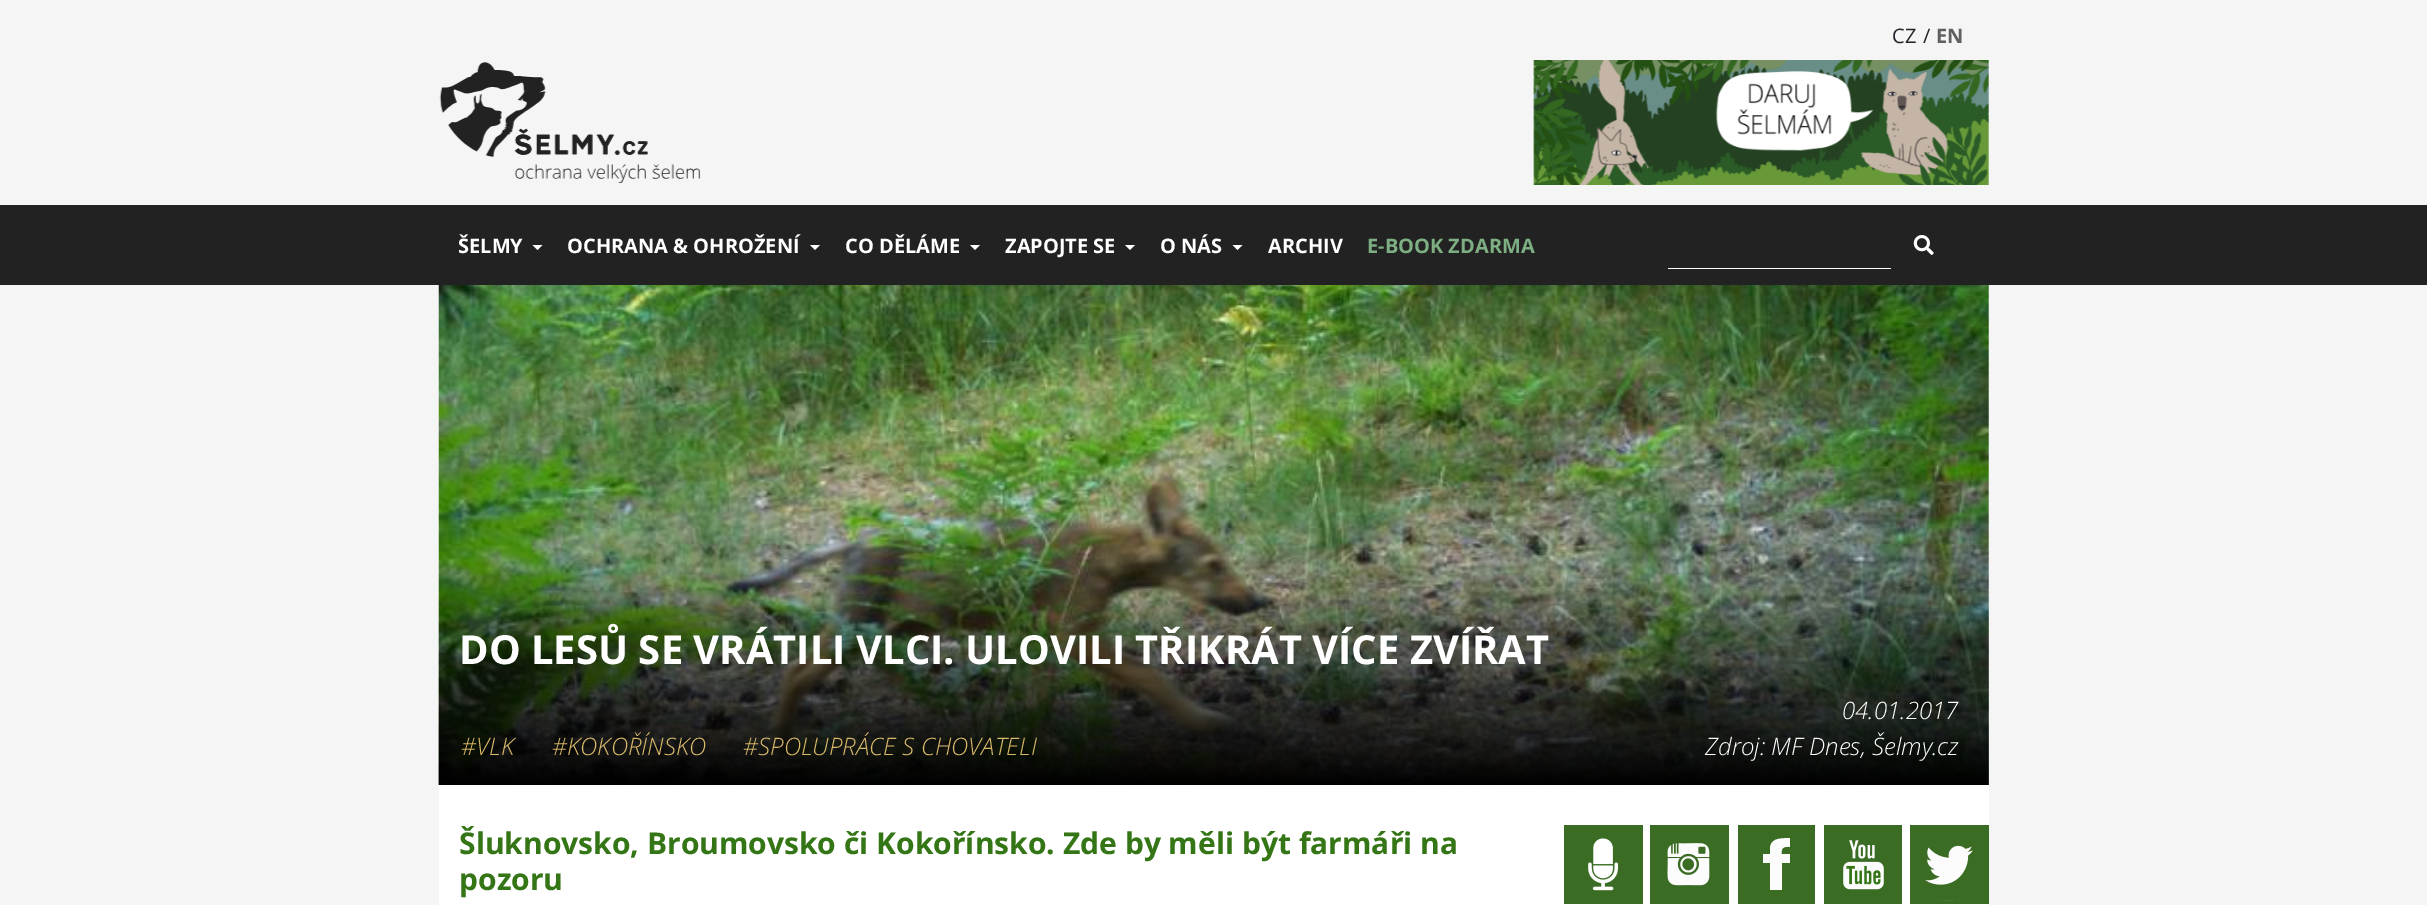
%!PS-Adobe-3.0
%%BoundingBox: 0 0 2427 905
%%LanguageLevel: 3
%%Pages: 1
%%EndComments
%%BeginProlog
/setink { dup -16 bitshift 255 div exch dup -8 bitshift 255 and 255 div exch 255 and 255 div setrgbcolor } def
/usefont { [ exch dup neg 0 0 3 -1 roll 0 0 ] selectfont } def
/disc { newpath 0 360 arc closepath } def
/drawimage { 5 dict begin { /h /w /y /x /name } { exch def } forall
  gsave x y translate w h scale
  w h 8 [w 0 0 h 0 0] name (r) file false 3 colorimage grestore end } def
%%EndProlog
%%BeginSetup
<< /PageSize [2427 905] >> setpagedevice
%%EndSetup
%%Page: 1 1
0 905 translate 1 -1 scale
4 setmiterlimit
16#F5F5F5 setink
0 0 2427 905 rectfill
/OpenSans-Regular 20 usefont
16#212529 setink
1892 43 moveto (CZ) show
1923 43 moveto (/) show
/OpenSans-Bold 20 usefont
16#606060 setink
1936 43 moveto (EN) show
(img1.raw) 439 62 262 121 drawimage
(img2.raw) 1533 60 456 125 drawimage
16#222222 setink
0 205 2427 80 rectfill
16#FFFFFF setink
458 253 moveto (ŠELMY) show
532.5 245 moveto 542.5 245 lineto 537.5 250 lineto closepath fill
567 253 moveto (OCHRANA & OHROŽENÍ) show
810 245 moveto 820 245 lineto 815 250 lineto closepath fill
845 253 moveto (CO DĚLÁME) show
970 245 moveto 980 245 lineto 975 250 lineto closepath fill
1005 253 moveto (ZAPOJTE SE) show
1125 245 moveto 1135 245 lineto 1130 250 lineto closepath fill
1160 253 moveto (O NÁS) show
1232.5 245 moveto 1242.5 245 lineto 1237.5 250 lineto closepath fill
1268 253 moveto (ARCHIV) show
16#7DAF82 setink
1367 253 moveto (E-BOOK ZDARMA) show
(img3.raw) 1913 235 21 20 drawimage
16#FFFFFF setink
1668 268 223 1 rectfill
439 285 1550 620 rectfill
(img4.raw) 438 285 1551 500 drawimage
(img5.raw) 438 566 1551 219 drawimage
/OpenSans-Bold 40 usefont
459 664 moveto (DO LESŮ SE VRÁTILI VLCI. ULOVILI TŘIKRÁT VÍCE ZVÍŘAT) show
/OpenSans-LightItalic 24 usefont
16#D9B96A setink
[
    [(#VLK) 461 755]
    [(#KOKOŘÍNSKO) 552 755]
    [(#SPOLUPRÁCE S CHOVATELI) 743 755]
] { aload pop moveto show } forall
16#FFFFFF setink
1842 719 moveto (04.01.2017) show
1705 755 moveto (Zdroj: MF Dnes, Šelmy.cz) show
/OpenSans-Bold 30 usefont
16#347516 setink
459 854 moveto (Šluknovsko, Broumovsko či Kokořínsko. Zde by měli být farmáři na) show
459 890 moveto (pozoru) show
(img6.raw) 1564 825 79 79 drawimage
(img7.raw) 1650 825 79 79 drawimage
16#3A6C23 setink
1738 825 77 79 rectfill
16#FCFCFC setink
1777 862 33.5 disc fill
gsave
1738 825 77 79 rectclip
16#3A6C23 setink
1776 825 moveto 1739 826 1723 875 1755 896 curveto 1761 900 1769 903 1776 903 curveto 1784 903 1792 900 1798 896 curveto 1830 875 1813 825 1776 825 curveto closepath 1782 854 moveto 1790 854 lineto 1790 863 lineto 1782 863 lineto 1782 890 lineto 1770 890 lineto 1770 863 lineto 1763 863 lineto 1763 854 lineto 1770 854 lineto 1770 846 lineto 1772 837 1783 838 1790 838 curveto 1790 847 lineto 1785 847 1781 847 1782 854 curveto closepath fill
grestore
(img8.raw) 1824 825 78 79 drawimage
(img9.raw) 1910 825 79 79 drawimage
showpage
%%EOF
